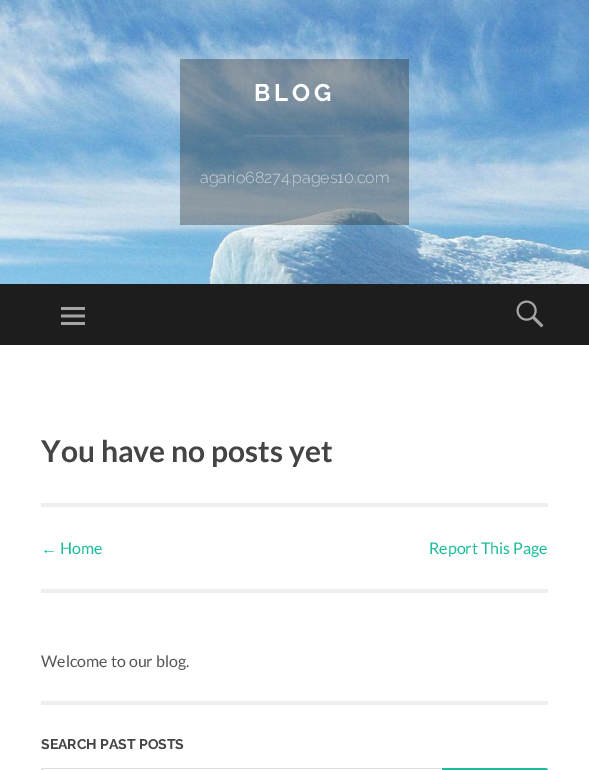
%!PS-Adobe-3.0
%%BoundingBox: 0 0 589 770
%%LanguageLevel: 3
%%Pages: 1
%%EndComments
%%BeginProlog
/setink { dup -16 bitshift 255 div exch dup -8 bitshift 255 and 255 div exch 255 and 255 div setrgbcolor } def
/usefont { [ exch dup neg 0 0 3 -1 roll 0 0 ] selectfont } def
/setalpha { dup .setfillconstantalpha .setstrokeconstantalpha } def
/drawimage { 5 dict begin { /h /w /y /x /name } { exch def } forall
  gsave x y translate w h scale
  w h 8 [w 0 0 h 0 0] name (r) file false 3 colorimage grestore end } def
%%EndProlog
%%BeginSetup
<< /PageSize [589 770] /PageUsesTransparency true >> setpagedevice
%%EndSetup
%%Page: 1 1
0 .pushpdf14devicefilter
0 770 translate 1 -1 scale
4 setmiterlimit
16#FFFFFF setink
0 0 589 770 rectfill
(img1.raw) 0 0 589 284 drawimage
0.34 setalpha
16#1D1D1D setink
180 59 229 166 rectfill
/Raleway-Bold 24 usefont
1 setalpha
16#FFFFFF setink
254 101 moveto 4 0 (BLOG) ashow
0.06 setalpha
244 135 100 2 rectfill
/Raleway-Light 16 usefont
1 setalpha
16#C9D2D9 setink
200 183 moveto (agario68274.pages10.com) show
16#1D1D1D setink
0 284 589 61 rectfill
(img2.raw) 61 307 24 18 drawimage
(img3.raw) 516 300 28 28 drawimage
/Lato-Bold 30 usefont
16#444444 setink
41 462 moveto (You have no posts yet) show
16#EEEEEE setink
41 503 507 4 rectfill
41 589 507 4 rectfill
/LiberationSans-Regular 16 usefont
16#1ABC9C setink
41 554 moveto (←) show
/Lato-Regular 16 usefont
60 554 moveto (Home) show
429 554 moveto (Report This Page) show
16#EEEEEE setink
41 701 507 4 rectfill
16#555555 setink
41 667 moveto (Welcome to our blog.) show
/Raleway-Bold 14 usefont
16#444444 setink
41 749 moveto (SEARCH PAST POSTS) show
16#DDDDDD setink
44 768 moveto 543 768 lineto 543 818 lineto 44 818 lineto 42 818 41 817 41 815 curveto 41 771 lineto 41 769 42 768 44 768 curveto closepath 44 769 moveto 543 769 lineto 543 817 lineto 44 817 lineto 43 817 42 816 42 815 curveto 42 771 lineto 42 770 43 769 44 769 curveto closepath eofill
16#1ABC9C setink
442.5 768.5 moveto 545 768.5 lineto 546.5 768.5 547.5 769.5 547.5 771 curveto 547.5 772.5 546.5 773.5 545 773.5 curveto 442.5 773.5 lineto closepath gsave fill grestore
stroke
.poppdf14devicefilter showpage
%%EOF
